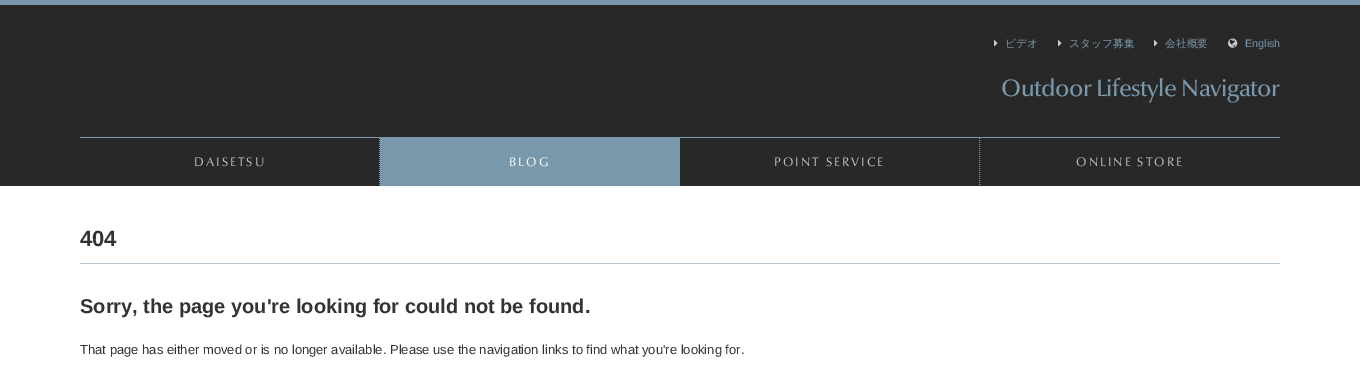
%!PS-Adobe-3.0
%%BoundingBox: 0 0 1360 382
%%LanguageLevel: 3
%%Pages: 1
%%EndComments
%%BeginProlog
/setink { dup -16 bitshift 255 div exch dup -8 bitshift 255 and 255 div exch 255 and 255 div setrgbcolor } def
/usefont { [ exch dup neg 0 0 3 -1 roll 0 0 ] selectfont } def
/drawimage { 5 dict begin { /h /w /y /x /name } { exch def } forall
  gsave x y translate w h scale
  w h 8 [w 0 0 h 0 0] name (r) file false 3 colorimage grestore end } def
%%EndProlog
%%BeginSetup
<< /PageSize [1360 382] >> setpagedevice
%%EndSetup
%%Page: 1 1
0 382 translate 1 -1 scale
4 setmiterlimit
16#FFFFFF setink
0 0 1360 382 rectfill
16#282828 setink
0 5 1360 181 rectfill
16#7A98AB setink
0 0 1360 5 rectfill
(img1.raw) 994 40 4 7 drawimage
/WenQuanYiZenHei-Medium 10.75 usefont
1005 47 moveto (ビデオ) show
(img1.raw) 1058 40 4 7 drawimage
1069 47 moveto (スタッフ募集) show
(img1.raw) 1154 40 4 7 drawimage
1165 47 moveto (会社概要) show
(img2.raw) 1228 38 10 10 drawimage
/LiberationSans-Regular 10.75 usefont
1245 47 moveto (English) show
/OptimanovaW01-Medium 24 usefont
1001 96 moveto -0.5 0 (Outdoor Lifestyle Navigator) ashow
80 137 1200 1 rectfill
[1 1] 0 setdash
379.5 138 moveto 379.5 186 lineto stroke
/OptimanovaW01-Regular 12.5 usefont
16#C4C4C4 setink
194 166 moveto 2 0 (DAISETSU) ashow
16#7A98AB setink
380 138 300 48 rectfill
16#FFFFFF setink
509 166 moveto 2 0 (BLOG) ashow
16#7A98AB setink
979.5 138 moveto 979.5 186 lineto stroke
16#C4C4C4 setink
774 166 moveto 2 0 (POINT SERVICE) ashow
1076 166 moveto 2 0 (ONLINE STORE) ashow
16#B9C8D2 setink
80 263 1200 1 rectfill
/LiberationSans-Bold 22 usefont
16#333333 setink
80 246 moveto (404) show
/LiberationSans-Bold 20 usefont
80 313 moveto (Sorry, the page you're looking for could not be found.) show
/LiberationSans-Regular 13 usefont
80 354 moveto (That page has either moved or is no longer available. Please use the navigation links to find what you're looking for.) show
showpage
%%EOF
